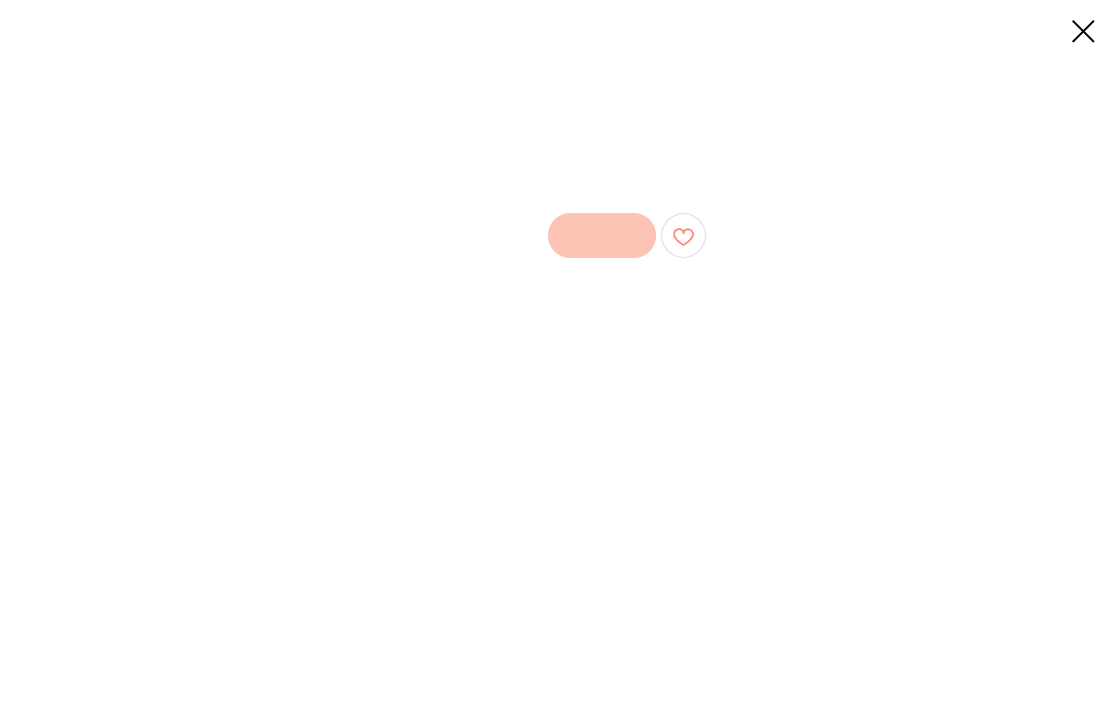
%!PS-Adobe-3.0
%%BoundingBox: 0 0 1115 714
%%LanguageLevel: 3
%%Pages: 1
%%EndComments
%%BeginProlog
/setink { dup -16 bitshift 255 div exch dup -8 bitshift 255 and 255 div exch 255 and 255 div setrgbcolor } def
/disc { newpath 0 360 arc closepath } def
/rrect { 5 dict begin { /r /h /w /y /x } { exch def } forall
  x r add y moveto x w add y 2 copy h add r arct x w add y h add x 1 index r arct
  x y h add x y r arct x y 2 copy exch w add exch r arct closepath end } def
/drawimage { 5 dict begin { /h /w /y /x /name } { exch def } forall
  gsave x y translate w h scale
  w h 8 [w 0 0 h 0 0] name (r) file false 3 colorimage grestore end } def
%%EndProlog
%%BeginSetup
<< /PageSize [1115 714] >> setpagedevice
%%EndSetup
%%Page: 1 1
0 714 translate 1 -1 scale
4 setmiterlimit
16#FFFFFF setink
0 0 1115 714 rectfill
(img1.raw) 1072 20 23 23 drawimage
16#FDC3B4 setink
548 213 108 45 22.5 rrect fill
16#E4E4E4 setink
683.5 235.5 22 disc stroke
16#FF8D74 setink
1.5 setlinewidth
1 setlinejoin
693 234.5 moveto 693 239.5 683.5 245 683.5 245 curveto 662 232.5 683.5 223 683.5 233.5 curveto 683.5 227.5 693 227.5 693 234.5 curveto closepath stroke
showpage
%%EOF
